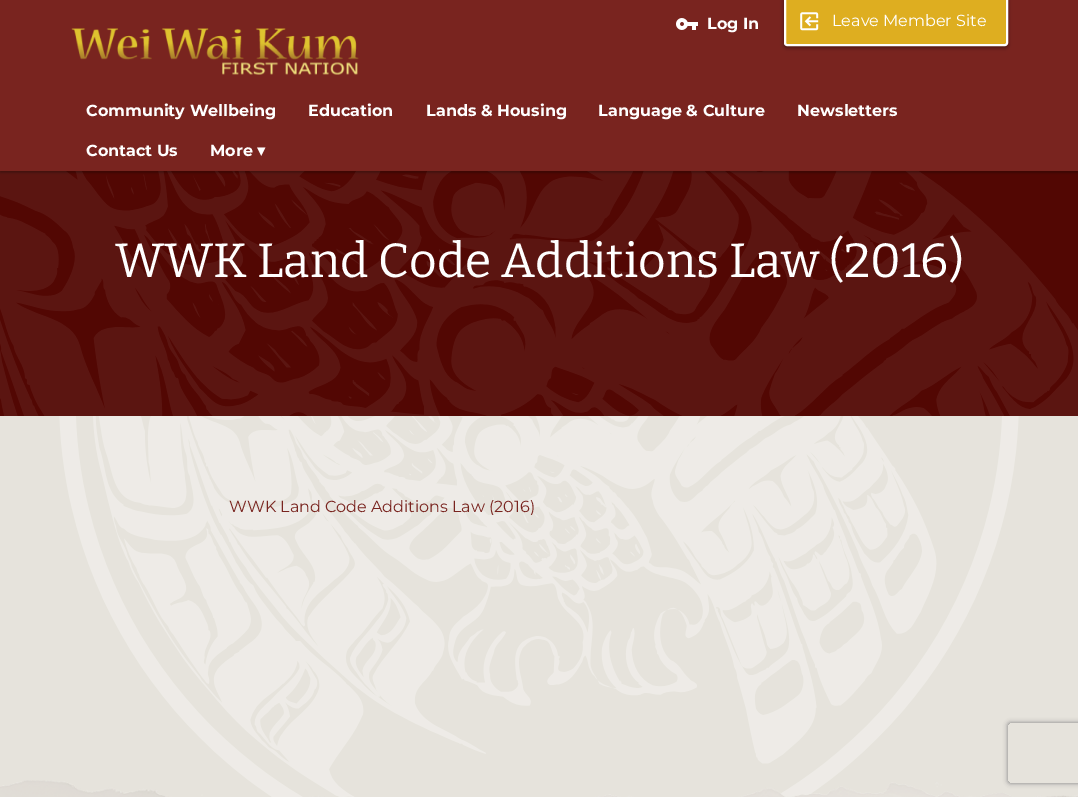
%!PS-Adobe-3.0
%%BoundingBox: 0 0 1078 797
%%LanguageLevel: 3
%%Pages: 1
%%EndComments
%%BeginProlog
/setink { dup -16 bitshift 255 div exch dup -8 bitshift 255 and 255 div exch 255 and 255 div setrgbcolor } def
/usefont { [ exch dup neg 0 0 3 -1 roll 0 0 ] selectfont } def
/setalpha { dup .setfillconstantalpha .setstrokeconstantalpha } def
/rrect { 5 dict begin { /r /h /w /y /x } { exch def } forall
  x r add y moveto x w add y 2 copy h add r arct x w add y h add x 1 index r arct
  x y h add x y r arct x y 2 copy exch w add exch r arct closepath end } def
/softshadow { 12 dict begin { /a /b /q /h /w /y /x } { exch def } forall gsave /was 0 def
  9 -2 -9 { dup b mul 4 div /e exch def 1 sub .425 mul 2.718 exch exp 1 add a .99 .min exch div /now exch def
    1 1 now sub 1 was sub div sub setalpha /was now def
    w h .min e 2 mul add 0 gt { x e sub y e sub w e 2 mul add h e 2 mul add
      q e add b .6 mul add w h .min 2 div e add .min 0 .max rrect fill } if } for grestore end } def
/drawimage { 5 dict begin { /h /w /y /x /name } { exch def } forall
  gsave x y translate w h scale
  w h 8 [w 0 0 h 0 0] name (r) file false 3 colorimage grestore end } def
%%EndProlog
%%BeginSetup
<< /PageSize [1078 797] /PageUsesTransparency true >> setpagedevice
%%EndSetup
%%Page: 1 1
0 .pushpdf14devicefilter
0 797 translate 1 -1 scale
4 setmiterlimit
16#520703 setink
0 0 1078 797 rectfill
(img4.raw) 0 171 1078 245 drawimage
16#000000 setink
0 1 1078 171 0 2 0.16 softshadow
0 2 1078 171 0 1 0.16 softshadow
16#79241F setink
0 0 1078 171 rectfill
(img1.raw) 676 18 22 12 drawimage
/Montserrat-Bold 16 usefont
16#FFFFFF setink
707 29 moveto (Log In) show
16#000000 setink
784 -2 224 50 3 2 0.4 softshadow
16#DEAE20 setink
785 -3 222 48 2 rrect gsave fill grestore
16#FFFFFF setink
2 setlinewidth
stroke
(img2.raw) 800 12 19 19 drawimage
/Montserrat-Regular 16 usefont
832 26 moveto (Leave Member Site) show
/Montserrat-Bold 16 usefont
[
    [(Community Wellbeing) 86 116]
    [(Education) 308 116]
    [(Lands & Housing) 426 116]
    [(Language & Culture) 598 116]
    [(Newsletters) 797 116]
    [(Contact Us) 86 156]
    [(More) 210 156]
] { aload pop moveto show } forall
/DejaVuSans-Bold 16 usefont
257 156 moveto (▾) show
(img3.raw) 71 28 288 47 drawimage
/Bitter-Regular 48 usefont
115 277 moveto (WWK Land Code Additions Law \(2016\)) show
16#E6E3DC setink
0 416 1078 381 rectfill
(img5.raw) 59 416 960 381 drawimage
/Montserrat-Regular 16 usefont
16#79241F setink
229 512 moveto (WWK Land Code Additions Law \(2016\)) show
(img6.raw) 0 780 1078 17 drawimage
gsave
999 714 moveto 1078 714 lineto 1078 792 lineto 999 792 lineto closepath 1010 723 moveto 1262 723 lineto 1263 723 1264 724 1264 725 curveto 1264 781 lineto 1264 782 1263 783 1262 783 curveto 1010 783 lineto 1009 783 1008 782 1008 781 curveto 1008 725 lineto 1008 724 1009 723 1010 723 curveto closepath eoclip newpath
16#808080 setink
1008 723 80 60 2 2.5 1 softshadow
grestore
.poppdf14devicefilter showpage
%%EOF
